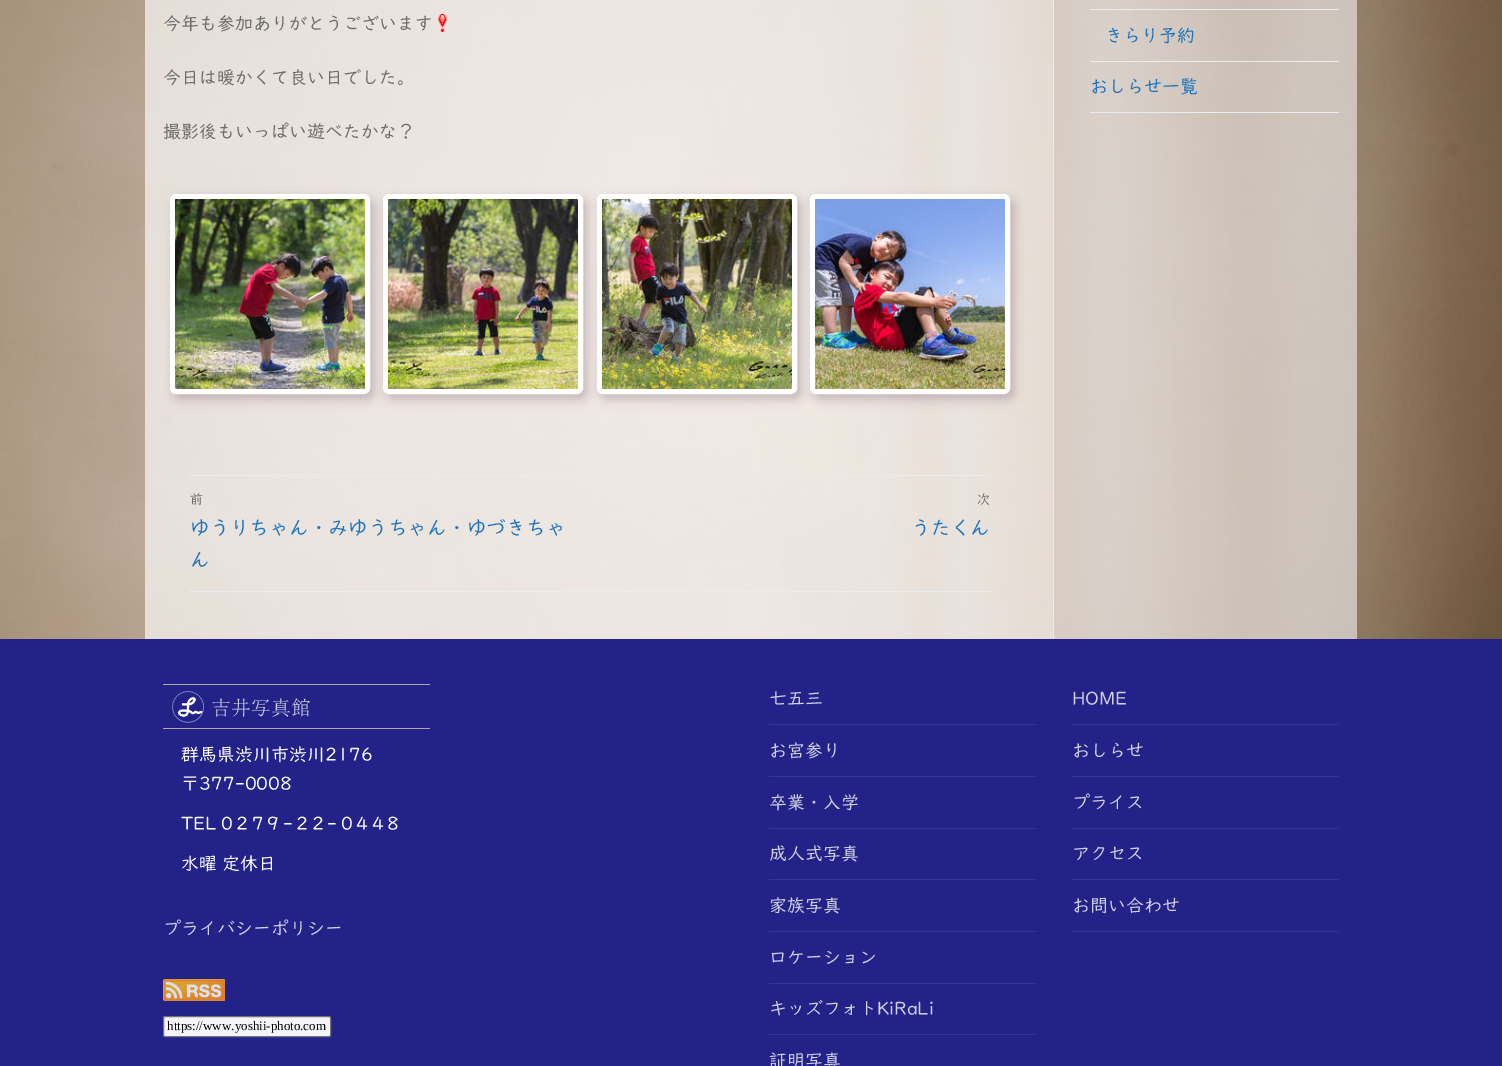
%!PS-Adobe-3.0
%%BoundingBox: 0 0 1502 1066
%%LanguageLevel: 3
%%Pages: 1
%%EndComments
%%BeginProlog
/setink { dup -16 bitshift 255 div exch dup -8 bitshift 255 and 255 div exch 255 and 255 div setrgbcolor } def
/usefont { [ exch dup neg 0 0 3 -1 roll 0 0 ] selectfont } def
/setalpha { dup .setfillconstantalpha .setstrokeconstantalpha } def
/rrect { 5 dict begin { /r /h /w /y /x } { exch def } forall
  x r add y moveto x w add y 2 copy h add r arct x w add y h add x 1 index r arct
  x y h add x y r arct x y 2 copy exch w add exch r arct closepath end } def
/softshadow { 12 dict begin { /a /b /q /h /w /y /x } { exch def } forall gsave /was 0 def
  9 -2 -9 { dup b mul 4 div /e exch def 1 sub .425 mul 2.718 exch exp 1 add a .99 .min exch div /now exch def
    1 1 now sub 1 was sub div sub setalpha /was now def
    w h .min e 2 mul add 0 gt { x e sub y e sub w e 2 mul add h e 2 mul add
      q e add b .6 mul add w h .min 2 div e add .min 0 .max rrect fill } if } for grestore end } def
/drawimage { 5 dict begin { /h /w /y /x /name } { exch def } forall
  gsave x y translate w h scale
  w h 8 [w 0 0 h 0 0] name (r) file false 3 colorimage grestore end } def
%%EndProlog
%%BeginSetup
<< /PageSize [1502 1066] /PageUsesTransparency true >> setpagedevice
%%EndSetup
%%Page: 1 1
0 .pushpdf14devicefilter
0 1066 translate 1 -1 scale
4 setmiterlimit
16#FFFFFF setink
0 0 1502 1066 rectfill
(img1.raw) 0 0 1502 639 drawimage
0.65 setalpha
145 0 908 639 rectfill
1 setalpha
16#EAECEE setink
1053 0 1 639 rectfill
/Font-Regular 18 usefont
16#6D6D6D setink
163 30 moveto (今年も参加ありがとうございます) show
(img2.raw) 438 14 9 18 drawimage
163 84 moveto (今日は暖かくて良い日でした。) show
163 138 moveto (撮影後もいっぱい遊べたかな？) show
16#422137 setink
174 199 200 200 6 5.5 0.25 softshadow
16#FFFFFF setink
5 setlinewidth
172.5 196.5 195 195 3.5 rrect stroke
(img3.raw) 175 199 190 190 drawimage
16#422137 setink
387 199 200 200 6 5.5 0.25 softshadow
16#FFFFFF setink
385.5 196.5 195 195 3.5 rrect stroke
(img4.raw) 388 199 190 190 drawimage
16#422137 setink
601 199 200 200 6 5.5 0.25 softshadow
16#FFFFFF setink
599.5 196.5 195 195 3.5 rrect stroke
(img5.raw) 602 199 190 190 drawimage
16#422137 setink
814 199 200 200 6 5.5 0.25 softshadow
16#FFFFFF setink
812.5 196.5 195 195 3.5 rrect stroke
(img6.raw) 815 199 190 190 drawimage
16#EAECEE setink
190 475 800 1 rectfill
190 591 800 1 rectfill
/Font-Regular 13 usefont
16#6D6D6D setink
190 504 moveto (前) show
/Font-Regular 19.75 usefont
16#1E73BE setink
190 535 moveto (ゆうりちゃん・みゆうちゃん・ゆづきちゃ) show
190 567 moveto (ん) show
/Font-Regular 13 usefont
16#6D6D6D setink
977 504 moveto (次) show
/Font-Regular 19.75 usefont
16#1E73BE setink
911 535 moveto (うたくん) show
0.6 setalpha
[
    [1054 0 303 639 16#F0F0F0]
] { aload pop setink rectfill } forall
1 setalpha
[
    [1090 9 249 1 16#EAECEE]
    [1090 61 249 1 16#EAECEE]
] { aload pop setink rectfill } forall
/Font-Regular 18 usefont
16#1E73BE setink
1105 42 moveto (きらり予約) show
16#EAECEE setink
1090 112 249 1 rectfill
16#1E73BE setink
1090 93 moveto (おしらせ一覧) show
[
    [0 639 1502 427 16#222288]
    [163 684 267 1 16#AAAAAA]
    [163 728 267 1 16#AAAAAA]
] { aload pop setink rectfill } forall
(img7.raw) 172 691 32 32 drawimage
/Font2-Regular 20 usefont
16#D1D1E6 setink
211 715 moveto (吉井写真館) show
/Font-Regular 18 usefont
16#FFFFFF setink
[
    [(群馬県渋川市渋川2176) 181 761]
    [(〒377-0008) 181 790]
    [(TEL) 181 830]
] { aload pop moveto show } forall
221 830 moveto 3.6 0 (0279-22-0448) ashow
181 870 moveto (水曜 定休日) show
16#D1D1E6 setink
163 935 moveto (プライバシーポリシー) show
(img8.raw) 163 979 62 22 drawimage
16#F4F4F9 setink
163.5 1016.5 167 20 1.5 rrect gsave fill grestore
16#727277 setink
1 setlinewidth
stroke
/LiberationSerif-Regular 13 usefont
16#020207 setink
167 1030 moveto (https://www.yoshii-photo.com) show
16#343492 setink
769 724 267 1 rectfill
/Font-Regular 18 usefont
16#D1D1E6 setink
769 705 moveto (七五三) show
16#343492 setink
769 776 267 1 rectfill
16#D1D1E6 setink
769 757 moveto (お宮参り) show
16#343492 setink
769 828 267 1 rectfill
16#D1D1E6 setink
769 809 moveto (卒業・入学) show
16#343492 setink
769 879 267 1 rectfill
16#D1D1E6 setink
769 860 moveto (成人式写真) show
16#343492 setink
769 931 267 1 rectfill
16#D1D1E6 setink
769 912 moveto (家族写真) show
16#343492 setink
769 983 267 1 rectfill
16#D1D1E6 setink
769 964 moveto (ロケーション) show
16#343492 setink
769 1034 267 1 rectfill
16#D1D1E6 setink
769 1015 moveto (キッズフォトKiRaLi) show
769 1067 moveto (証明写真) show
16#343492 setink
1072 724 267 1 rectfill
16#D1D1E6 setink
1072 705 moveto (HOME) show
16#343492 setink
1072 776 267 1 rectfill
16#D1D1E6 setink
1072 757 moveto (おしらせ) show
16#343492 setink
1072 828 267 1 rectfill
16#D1D1E6 setink
1072 809 moveto (プライス) show
16#343492 setink
1072 879 267 1 rectfill
16#D1D1E6 setink
1072 860 moveto (アクセス) show
16#343492 setink
1072 931 267 1 rectfill
16#D1D1E6 setink
1072 912 moveto (お問い合わせ) show
.poppdf14devicefilter showpage
%%EOF
